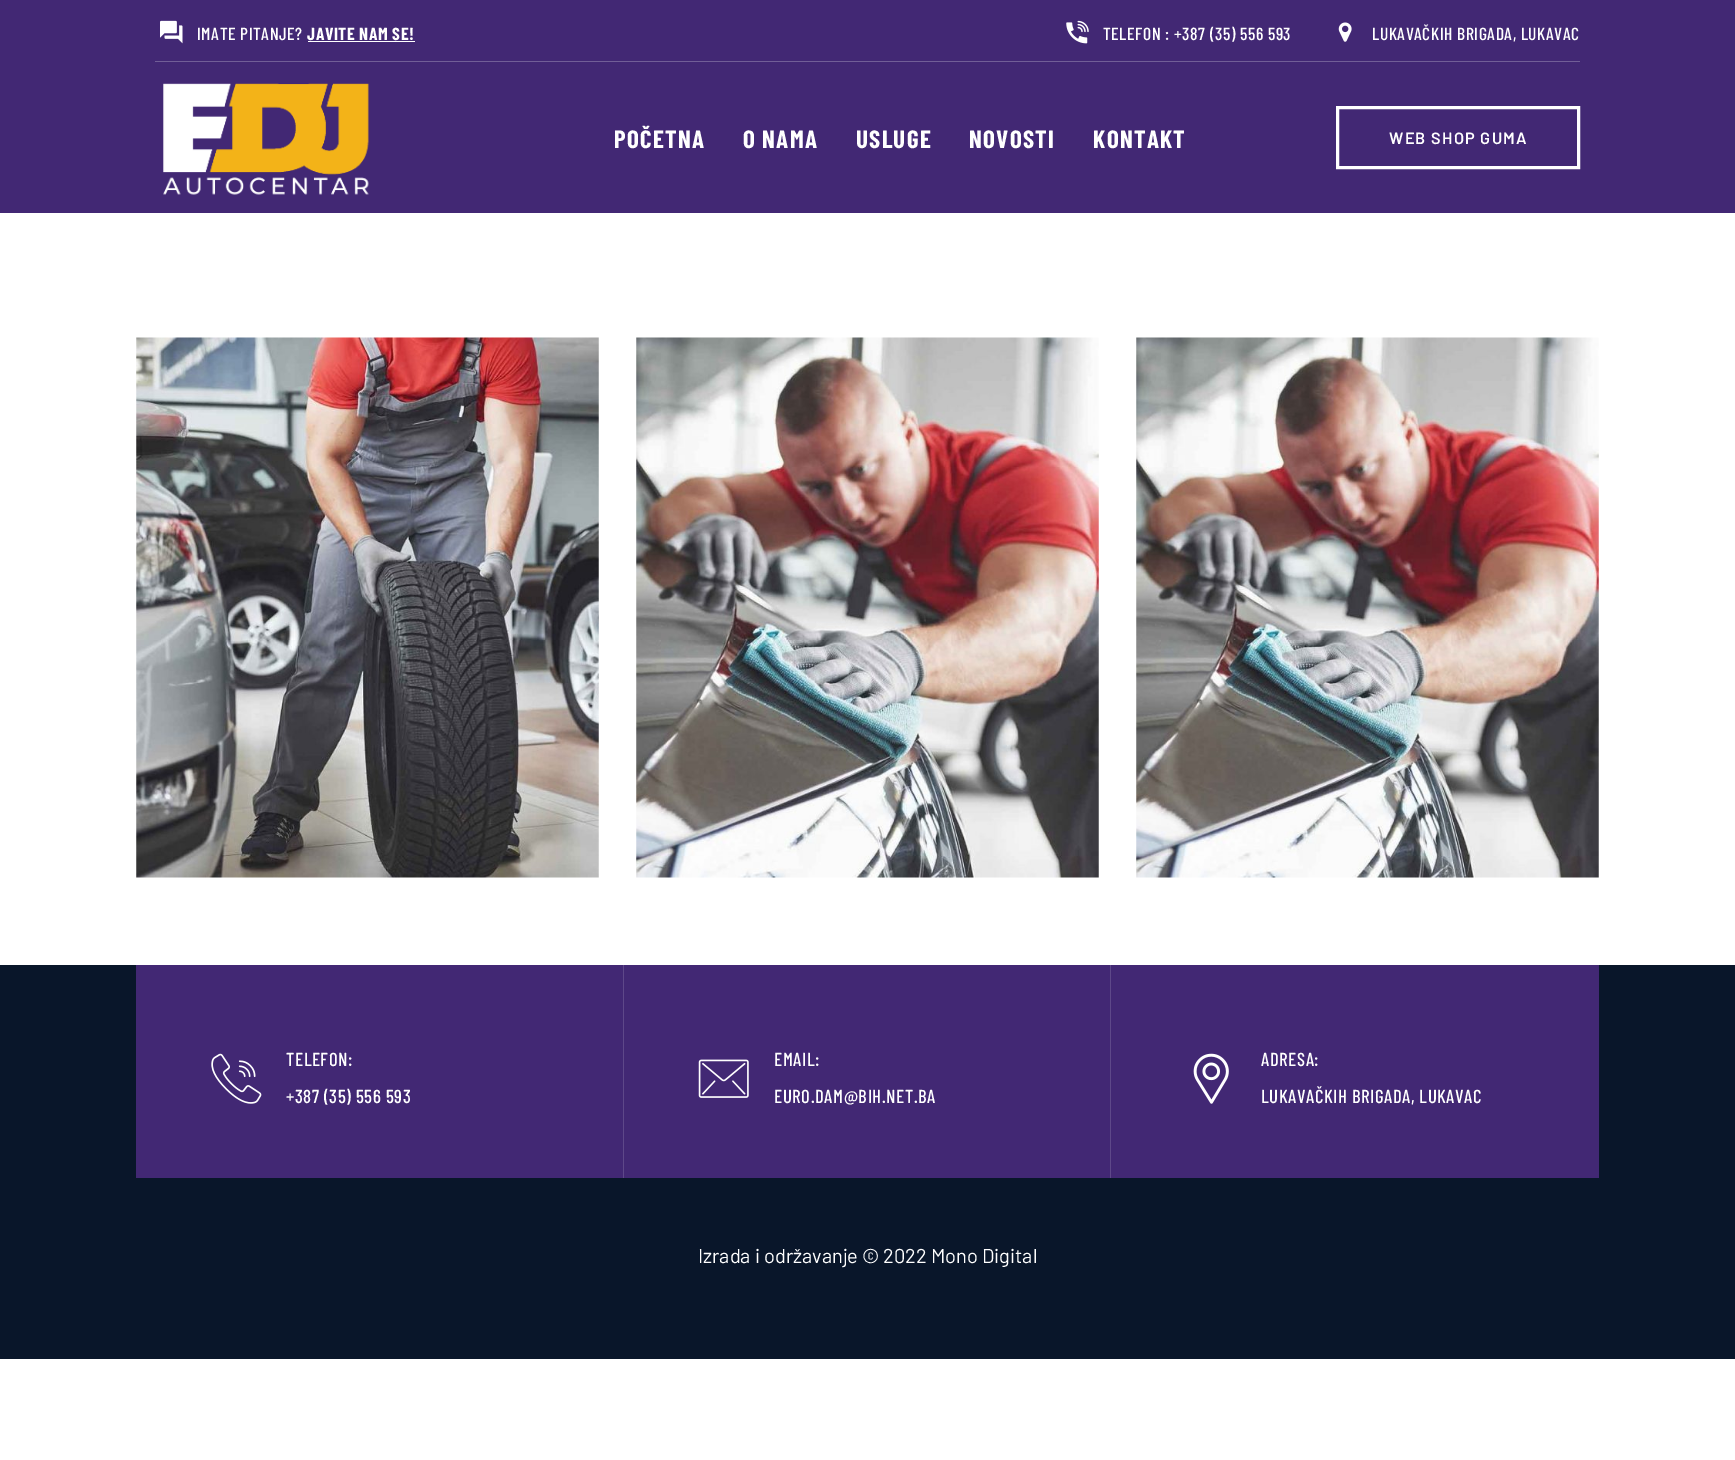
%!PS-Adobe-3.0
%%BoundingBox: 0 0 1735 1460
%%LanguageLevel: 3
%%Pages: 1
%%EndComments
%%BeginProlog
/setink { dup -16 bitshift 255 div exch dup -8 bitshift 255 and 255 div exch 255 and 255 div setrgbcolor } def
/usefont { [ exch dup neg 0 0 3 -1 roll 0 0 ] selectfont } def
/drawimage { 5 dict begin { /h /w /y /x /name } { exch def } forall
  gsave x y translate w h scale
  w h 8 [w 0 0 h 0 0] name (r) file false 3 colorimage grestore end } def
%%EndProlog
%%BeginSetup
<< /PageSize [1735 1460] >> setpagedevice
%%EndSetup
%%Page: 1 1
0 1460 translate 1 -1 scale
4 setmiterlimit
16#FFFFFF setink
0 0 1735 1460 rectfill
16#422874 setink
0 0 1735 213 rectfill
16#715E97 setink
155 61 1425 1 rectfill
(img1.raw) 160 20 23 24 drawimage
/BarlowCondensed-Medium 17.5 usefont
16#FFFFFF setink
197 40 moveto 0.6 0 (IMATE PITANJE?) ashow
/BarlowCondensed-Bold 17.5 usefont
307 40 moveto 0.6 0 (JAVITE NAM SE!) ashow
308 41 107 1 rectfill
(img2.raw) 1066 20 23 24 drawimage
/BarlowCondensed-Medium 17.5 usefont
1103 40 moveto 0.6 0 (TELEFON : +387 \(35\) 556 593) ashow
(img3.raw) 1338 22 14 20 drawimage
1372 40 moveto 0.6 0 (LUKAVAČKIH BRIGADA, LUKAVAC) ashow
(img4.raw) 163 83 206 112 drawimage
/BarlowCondensed-Bold 25 usefont
614 148 moveto 1.25 0 (POČETNA) ashow
743 148 moveto 1.25 0 (O NAMA) ashow
856 148 moveto 1.25 0 (USLUGE) ashow
969 148 moveto 1.25 0 (NOVOSTI) ashow
1093 148 moveto 1.25 0 (KONTAKT) ashow
3 setlinewidth
1337.5 107.5 241 60 rectstroke
/Barlow-SemiBold 16.25 usefont
1389 144 moveto 1.25 0 (WEB SHOP GUMA) ashow
(img5.raw) 136 337 463 541 drawimage
(img6.raw) 636 337 463 541 drawimage
(img7.raw) 1136 337 463 541 drawimage
[
    [0 965 1735 394 16#09162A]
    [136 965 1463 213 16#422874]
    [623 965 1 213 16#5E4889]
] { aload pop setink rectfill } forall
(img8.raw) 211 1053 51 51 drawimage
/BarlowCondensed-Medium 18.75 usefont
16#FFFFFF setink
286 1066 moveto 0.6 0 (TELEFON:) ashow
286 1103 moveto 0.6 0 (+387 \(35\) 556 593) ashow
16#5E4889 setink
1110 965 1 213 rectfill
(img9.raw) 698 1059 51 39 drawimage
16#FFFFFF setink
774 1066 moveto 0.6 0 (EMAIL:) ashow
774 1103 moveto 0.6 0 (EURO.DAM@BIH.NET.BA) ashow
(img10.raw) 1193 1053 36 51 drawimage
1261 1066 moveto 0.6 0 (ADRESA:) ashow
1261 1103 moveto 0.6 0 (LUKAVAČKIH BRIGADA, LUKAVAC) ashow
/Barlow-Regular 20 usefont
698 1263 moveto (Izrada i održavanje © 2022 Mono Digital) show
showpage
%%EOF
